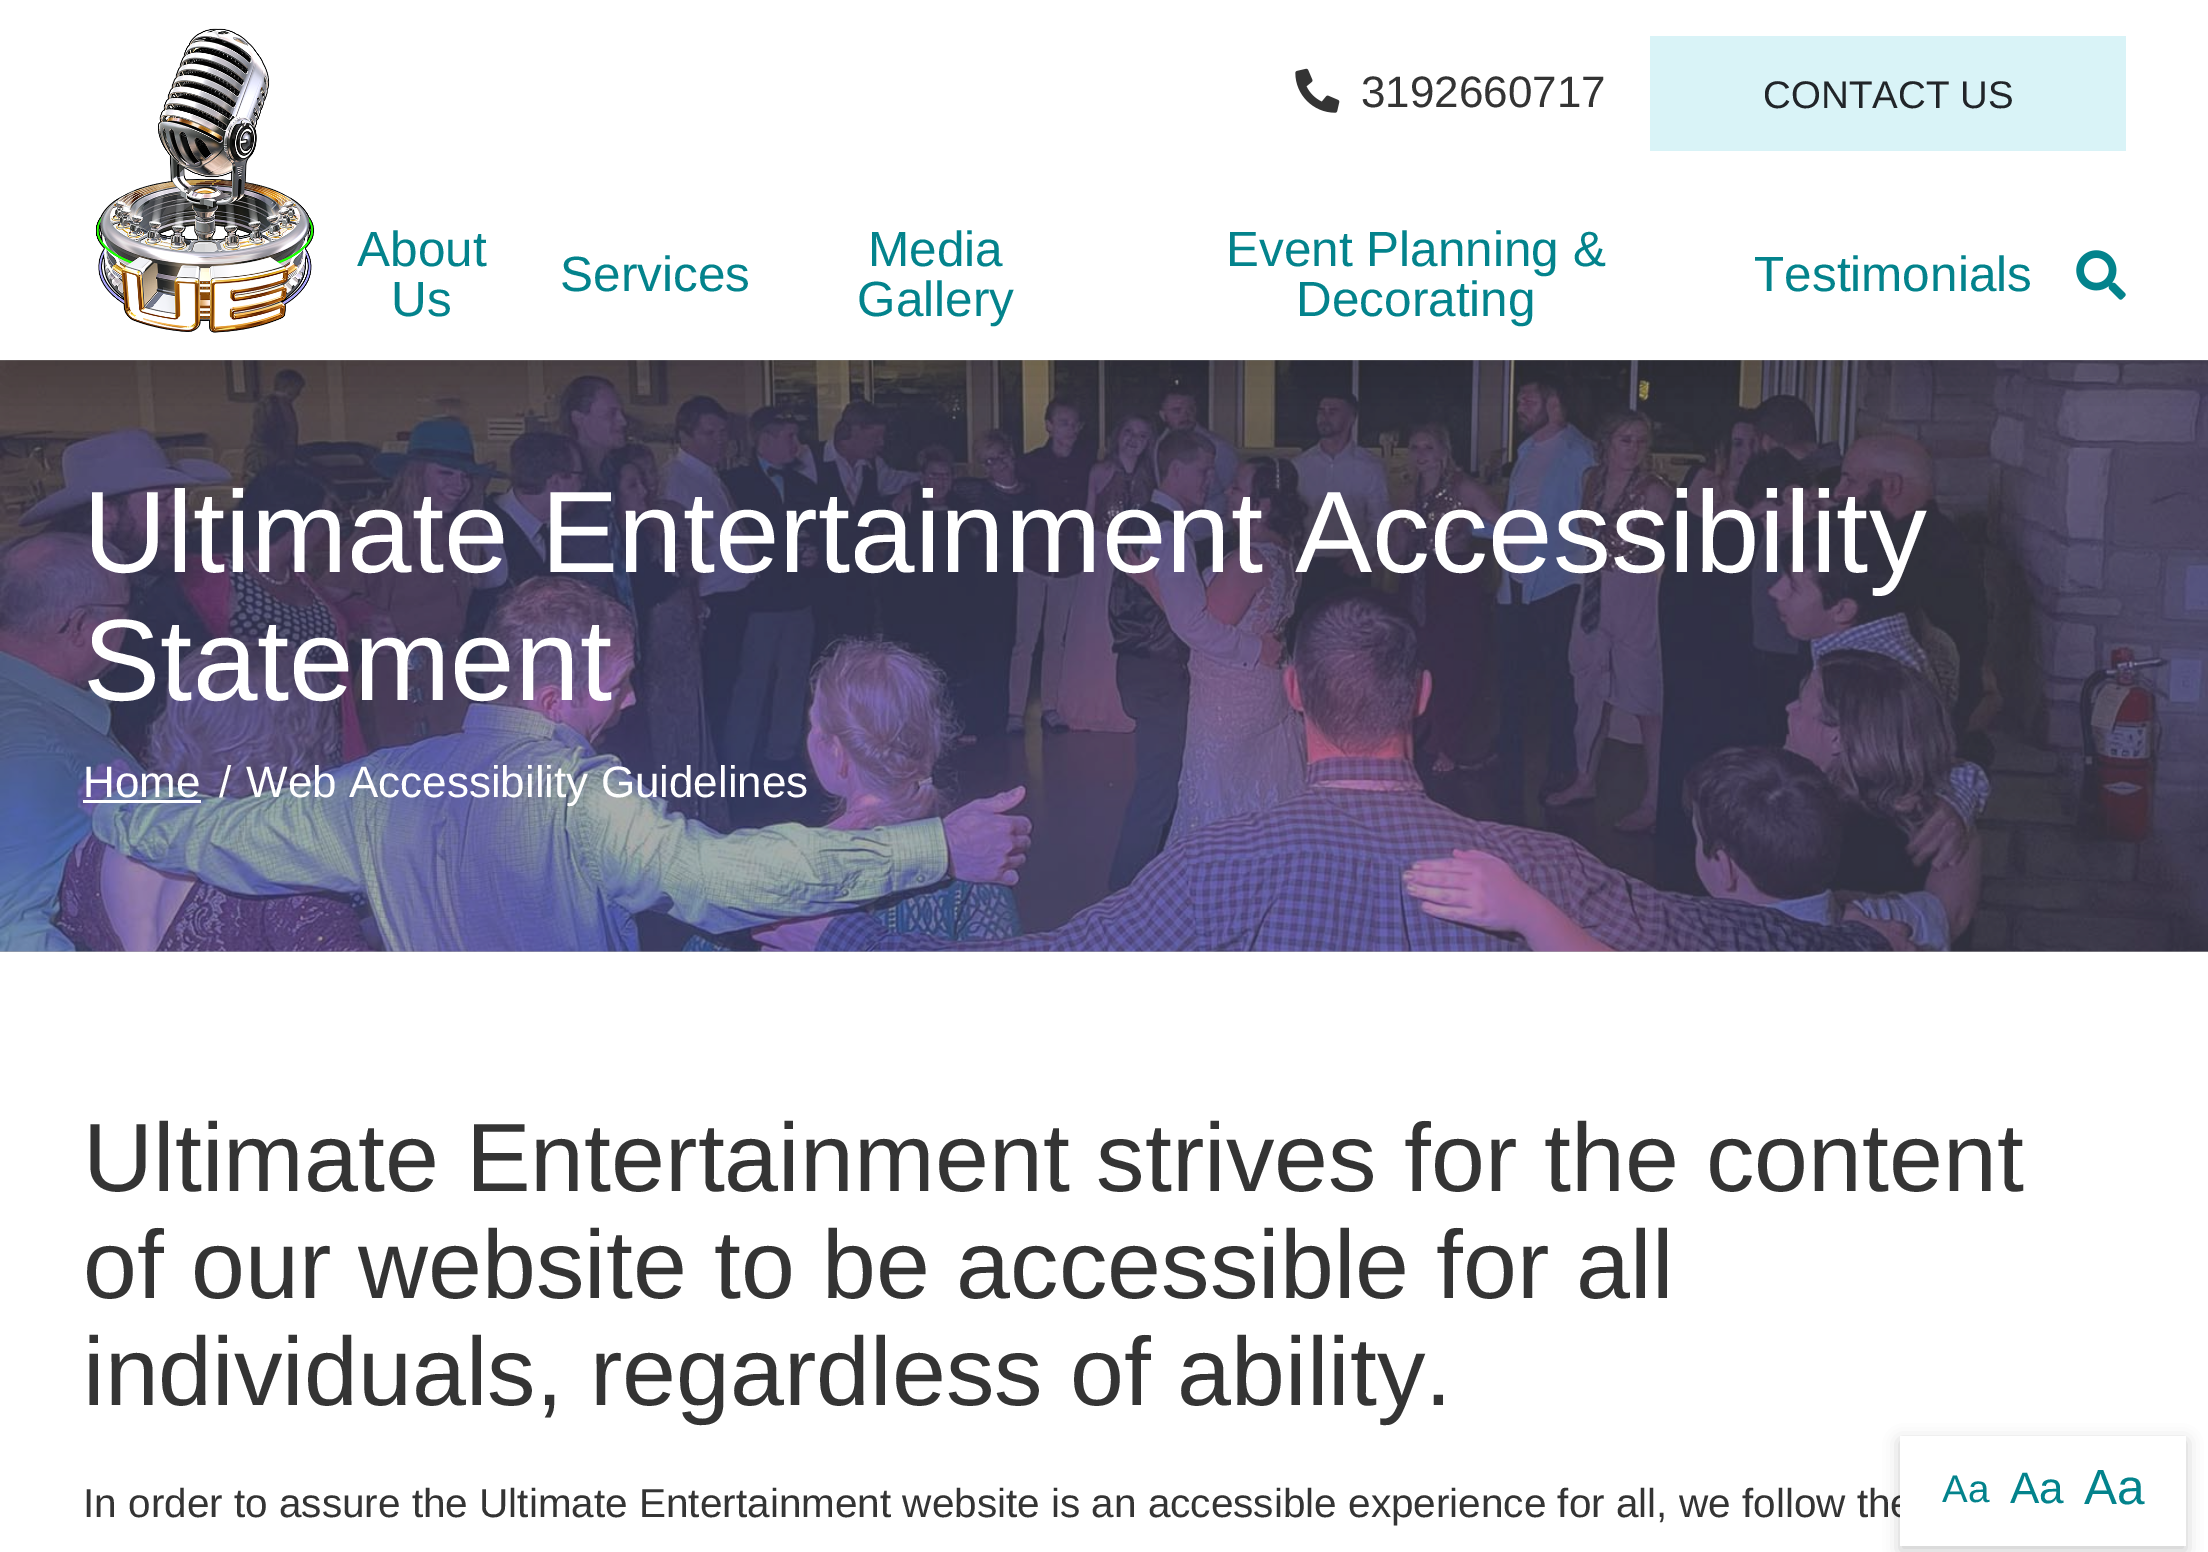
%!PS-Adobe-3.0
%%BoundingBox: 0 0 2208 1552
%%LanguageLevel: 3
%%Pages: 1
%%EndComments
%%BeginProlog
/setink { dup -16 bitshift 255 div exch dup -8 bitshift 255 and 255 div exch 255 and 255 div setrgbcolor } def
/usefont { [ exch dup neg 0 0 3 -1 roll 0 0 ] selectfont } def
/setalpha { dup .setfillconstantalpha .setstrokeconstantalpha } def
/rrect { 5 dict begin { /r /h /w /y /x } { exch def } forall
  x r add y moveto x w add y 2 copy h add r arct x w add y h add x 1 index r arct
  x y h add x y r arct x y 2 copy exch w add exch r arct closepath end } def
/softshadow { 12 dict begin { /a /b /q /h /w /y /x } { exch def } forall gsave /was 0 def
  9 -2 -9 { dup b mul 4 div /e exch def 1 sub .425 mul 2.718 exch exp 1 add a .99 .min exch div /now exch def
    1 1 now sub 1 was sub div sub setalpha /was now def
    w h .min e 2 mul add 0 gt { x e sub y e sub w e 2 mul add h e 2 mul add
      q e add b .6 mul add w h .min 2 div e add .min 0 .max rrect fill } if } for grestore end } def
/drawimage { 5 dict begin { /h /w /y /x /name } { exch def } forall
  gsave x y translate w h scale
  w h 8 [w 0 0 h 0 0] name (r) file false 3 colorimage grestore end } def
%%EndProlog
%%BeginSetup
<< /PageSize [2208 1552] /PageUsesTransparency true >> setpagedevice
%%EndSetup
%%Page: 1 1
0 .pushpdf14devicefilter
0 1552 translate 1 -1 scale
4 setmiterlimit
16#FFFFFF setink
0 0 2208 1552 rectfill
16#ACACAC setink
0 360 2208 592 rectfill
(img4.raw) 0 360 2208 592 drawimage
gsave
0 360 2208 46 rectclip
16#000000 setink
0 22 2208 360 0 22 0.15 softshadow
grestore
(img1.raw) 96 28 219 305 drawimage
(img2.raw) 1295 68 45 45 drawimage
/LiberationSans-Regular 44 usefont
16#343434 setink
1361 107 moveto (3192660717) show
16#D9F3F7 setink
1650 36 476 115 rectfill
/LiberationSans-Regular 38.5 usefont
16#212529 setink
1763 108 moveto (CONTACT US) show
/LiberationSans-Regular 49.5 usefont
16#03838C setink
[
    [(About) 357 266]
    [(Us) 391 316]
    [(Services) 560 291]
    [(Media) 868 266]
    [(Gallery) 857 316]
    [(Event Planning &) 1226 266]
    [(Decorating) 1296 316]
    [(Testimonials) 1754 291]
] { aload pop moveto show } forall
(img3.raw) 2076 250 50 50 drawimage
/LiberationSans-Regular 116 usefont
16#FFFFFF setink
83 572 moveto (Ultimate Entertainment Accessibility) show
83 700 moveto (Statement) show
/LiberationSans-Regular 44 usefont
83 797 moveto (Home) show
83 800 118 3 rectfill
219 797 moveto (/) show
246 797 moveto (Web Accessibility Guidelines) show
/LiberationSans-Regular 97 usefont
16#343434 setink
[
    [(Ultimate Entertainment strives for the content) 83 1191]
    [(of our website to be accessible for all) 83 1298]
    [(individuals, regardless of ability.) 83 1405]
] { aload pop moveto show } forall
/LiberationSans-Regular 40.5 usefont
83 1517 moveto (In order to assure the Ultimate Entertainment website is an accessible experience for all, we follow the) show
16#000000 setink
1900 1441 286 110 0 8 0.2 softshadow
16#FFFFFF setink
1900 1436 286 110 rectfill
/LiberationSans-Regular 38.5 usefont
16#03838C setink
1942 1502 moveto (Aa) show
/LiberationSans-Regular 44 usefont
2010 1503 moveto (Aa) show
/LiberationSans-Regular 49.5 usefont
2084 1504 moveto (Aa) show
.poppdf14devicefilter showpage
%%EOF
